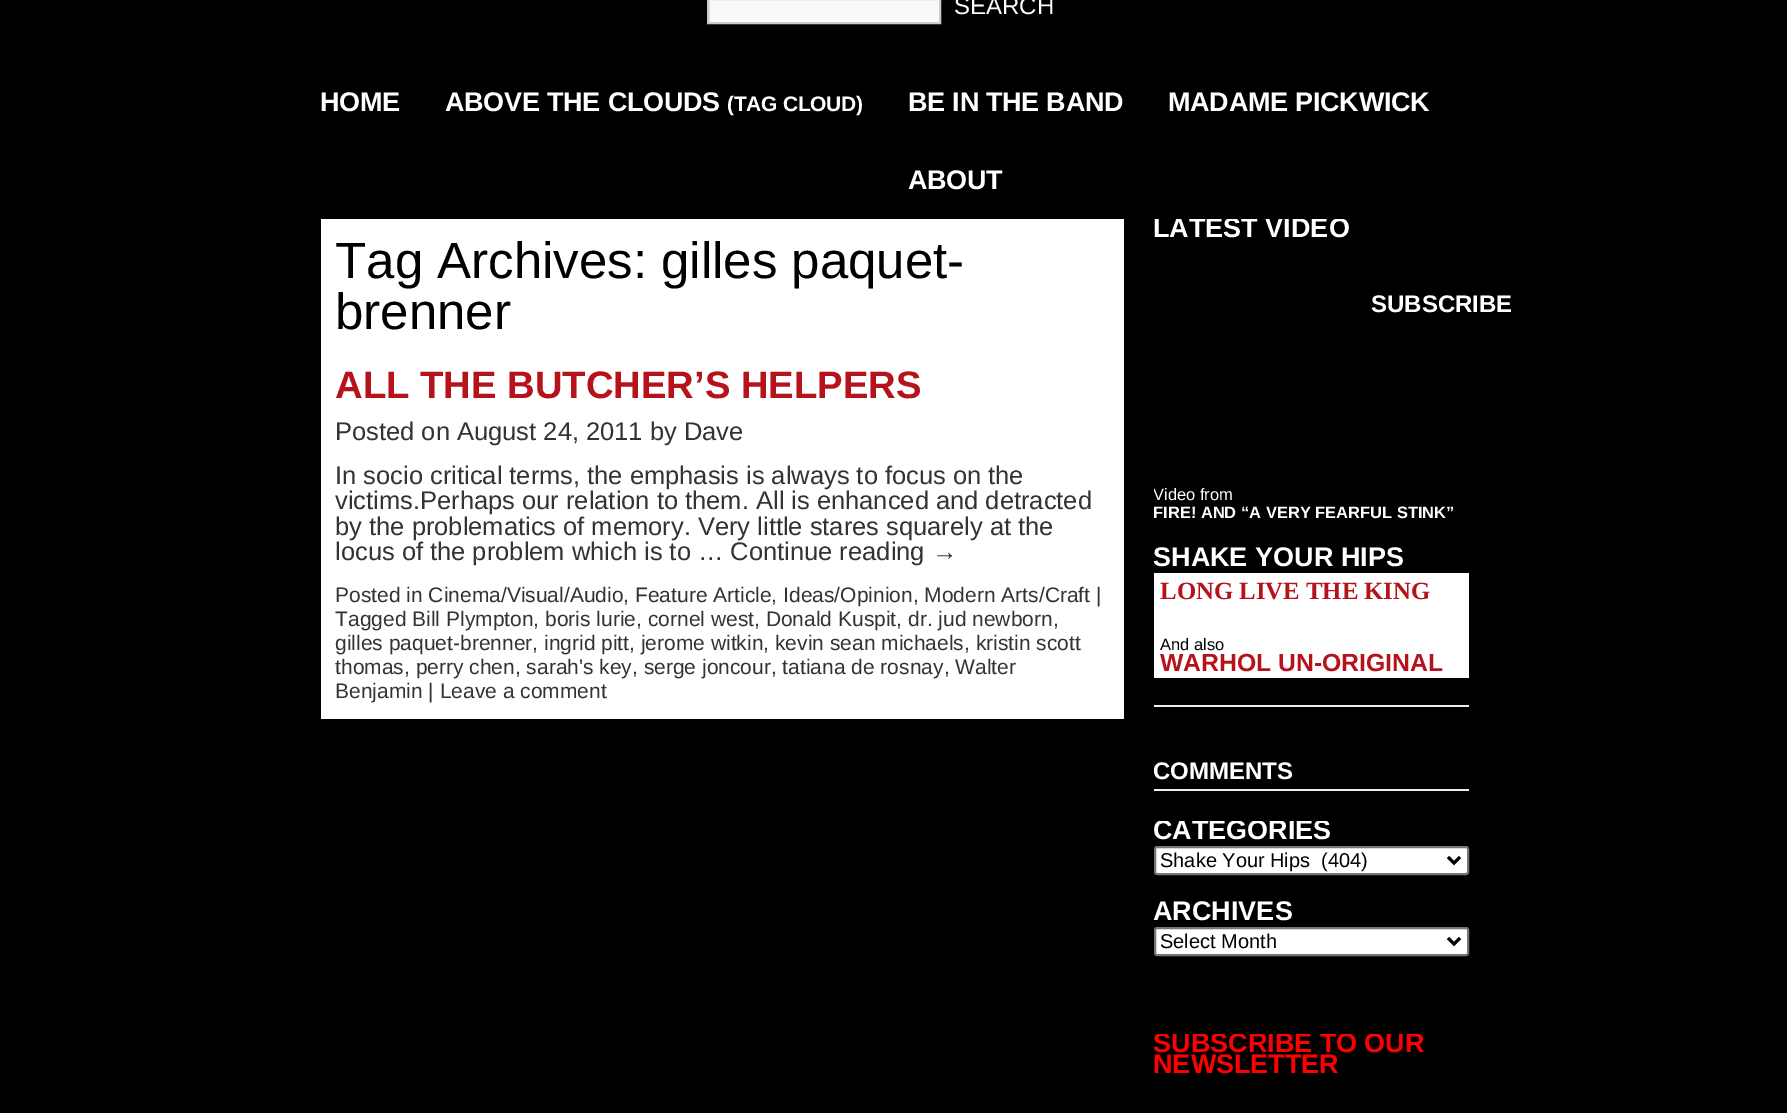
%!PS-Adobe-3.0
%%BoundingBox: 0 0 1787 1113
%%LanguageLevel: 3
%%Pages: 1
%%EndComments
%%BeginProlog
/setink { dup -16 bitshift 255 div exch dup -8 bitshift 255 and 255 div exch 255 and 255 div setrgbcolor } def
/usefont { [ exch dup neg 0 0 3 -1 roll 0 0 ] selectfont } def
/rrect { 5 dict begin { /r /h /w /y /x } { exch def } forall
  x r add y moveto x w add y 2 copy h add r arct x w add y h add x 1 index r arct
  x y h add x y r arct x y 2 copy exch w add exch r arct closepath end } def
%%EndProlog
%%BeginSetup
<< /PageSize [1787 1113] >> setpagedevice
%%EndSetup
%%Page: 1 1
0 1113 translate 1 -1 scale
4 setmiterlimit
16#000000 setink
0 0 1787 1113 rectfill
16#F9F9F9 setink
710 0 229 22 rectfill
gsave
708 0 231 23 rectclip
16#E0E0E0 setink
560 -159 moveto 1088 -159 lineto 1088 171 lineto 560 171 lineto closepath 710 -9 moveto 940 -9 lineto 940 24 lineto 710 24 lineto closepath eofill
grestore
16#CCCCCC setink
2 setlinewidth
708 -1 232 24 rectstroke
/LiberationSans-Regular 24 usefont
16#FFFFFF setink
954 14 moveto (SEARCH) show
/LiberationSans-Bold 27 usefont
320 111 moveto -0.25 0 (HOME) ashow
445 111 moveto -0.25 0 (ABOVE THE CLOUDS) ashow
/LiberationSans-Bold 21 usefont
727 111 moveto -0.25 0 (\(TAG CLOUD\)) ashow
/LiberationSans-Bold 27 usefont
908 111 moveto -0.25 0 (BE IN THE BAND) ashow
1168 111 moveto -0.25 0 (MADAME PICKWICK) ashow
908 189 moveto -0.25 0 (ABOUT) ashow
/LiberationSans-Bold 24 usefont
1371 312 moveto (SUBSCRIBE) show
321 219 803 500 rectfill
/LiberationSans-Regular 51 usefont
16#000000 setink
335 278 moveto (Tag Archives: gilles paquet-) show
335 329 moveto (brenner) show
/LiberationSans-Bold 38.25 usefont
16#B5121B setink
335 398 moveto (ALL THE BUTCHER’S HELPERS) show
/LiberationSans-Regular 25.5 usefont
16#333333 setink
[
    [(Posted on August 24, 2011 by Dave) 335 440]
    [(In socio critical terms, the emphasis is always to focus on the) 335 484]
    [(victims.Perhaps our relation to them. All is enhanced and detracted) 335 509]
    [(by the problematics of memory. Very little stares squarely at the) 335 535]
    [(locus of the problem which is to … Continue reading →) 335 560]
] { aload pop moveto show } forall
/LiberationSans-Regular 21 usefont
[
    [(Posted in Cinema/Visual/Audio, Feature Article, Ideas/Opinion, Modern Arts/Craft |) 335 602]
    [(Tagged Bill Plympton, boris lurie, cornel west, Donald Kuspit, dr. jud newborn,) 335 626]
    [(gilles paquet-brenner, ingrid pitt, jerome witkin, kevin sean michaels, kristin scott) 335 650]
    [(thomas, perry chen, sarah's key, serge joncour, tatiana de rosnay, Walter) 335 674]
    [(Benjamin | Leave a comment) 335 698]
] { aload pop moveto show } forall
gsave
1154 219 315 602 rectclip
/LiberationSans-Bold 27 usefont
16#FFFFFF setink
1153 237 moveto (LATEST VIDEO) show
/LiberationSans-Regular 16.5 usefont
1153 500 moveto (Video from) show
/LiberationSans-Bold 16.5 usefont
1153 518 moveto (FIRE! AND “A VERY FEARFUL STINK”) show
grestore
/LiberationSans-Bold 27 usefont
16#FFFFFF setink
1153 566 moveto (SHAKE YOUR HIPS) show
1154 573 315 105 rectfill
/LiberationSerif-Bold 24.75 usefont
16#B5121B setink
1160 599 moveto (LONG LIVE THE KING) show
/LiberationSans-Regular 16.5 usefont
16#000000 setink
1160 650 moveto (And also) show
/LiberationSans-Bold 24.75 usefont
16#B5121B setink
1160 671 moveto (WARHOL UN-ORIGINAL) show
16#EEEEEE setink
1154 705 315 2 rectfill
1154 789 315 2 rectfill
gsave
1154 219 315 602 rectclip
/LiberationSans-Bold 24 usefont
16#FFFFFF setink
1153 779 moveto (COMMENTS) show
grestore
gsave
1154 821 315 213 rectclip
/LiberationSans-Bold 27 usefont
16#FFFFFF setink
1153 839 moveto (CATEGORIES) show
grestore
16#FFFFFF setink
1155 847 313 27 2 rrect gsave fill grestore
16#767676 setink
stroke
16#000000 setink
3 setlinewidth
1448 857 moveto 1454 863 lineto 1460 857 lineto stroke
/LiberationSans-Regular 20 usefont
1160 867 moveto (Shake Your Hips  \(404\)) show
/LiberationSans-Bold 27 usefont
16#FFFFFF setink
1153 920 moveto (ARCHIVES) show
1155 928 313 27 2 rrect gsave fill grestore
16#767676 setink
2 setlinewidth
stroke
16#000000 setink
3 setlinewidth
1448 938 moveto 1454 944 lineto 1460 938 lineto stroke
/LiberationSans-Regular 20 usefont
1160 948 moveto (Select Month) show
gsave
1154 1034 315 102 rectclip
/LiberationSans-Bold 27 usefont
16#FF0000 setink
1153 1052 moveto (SUBSCRIBE TO OUR) show
grestore
/LiberationSans-Bold 27 usefont
16#FF0000 setink
1153 1073 moveto (NEWSLETTER) show
showpage
%%EOF
